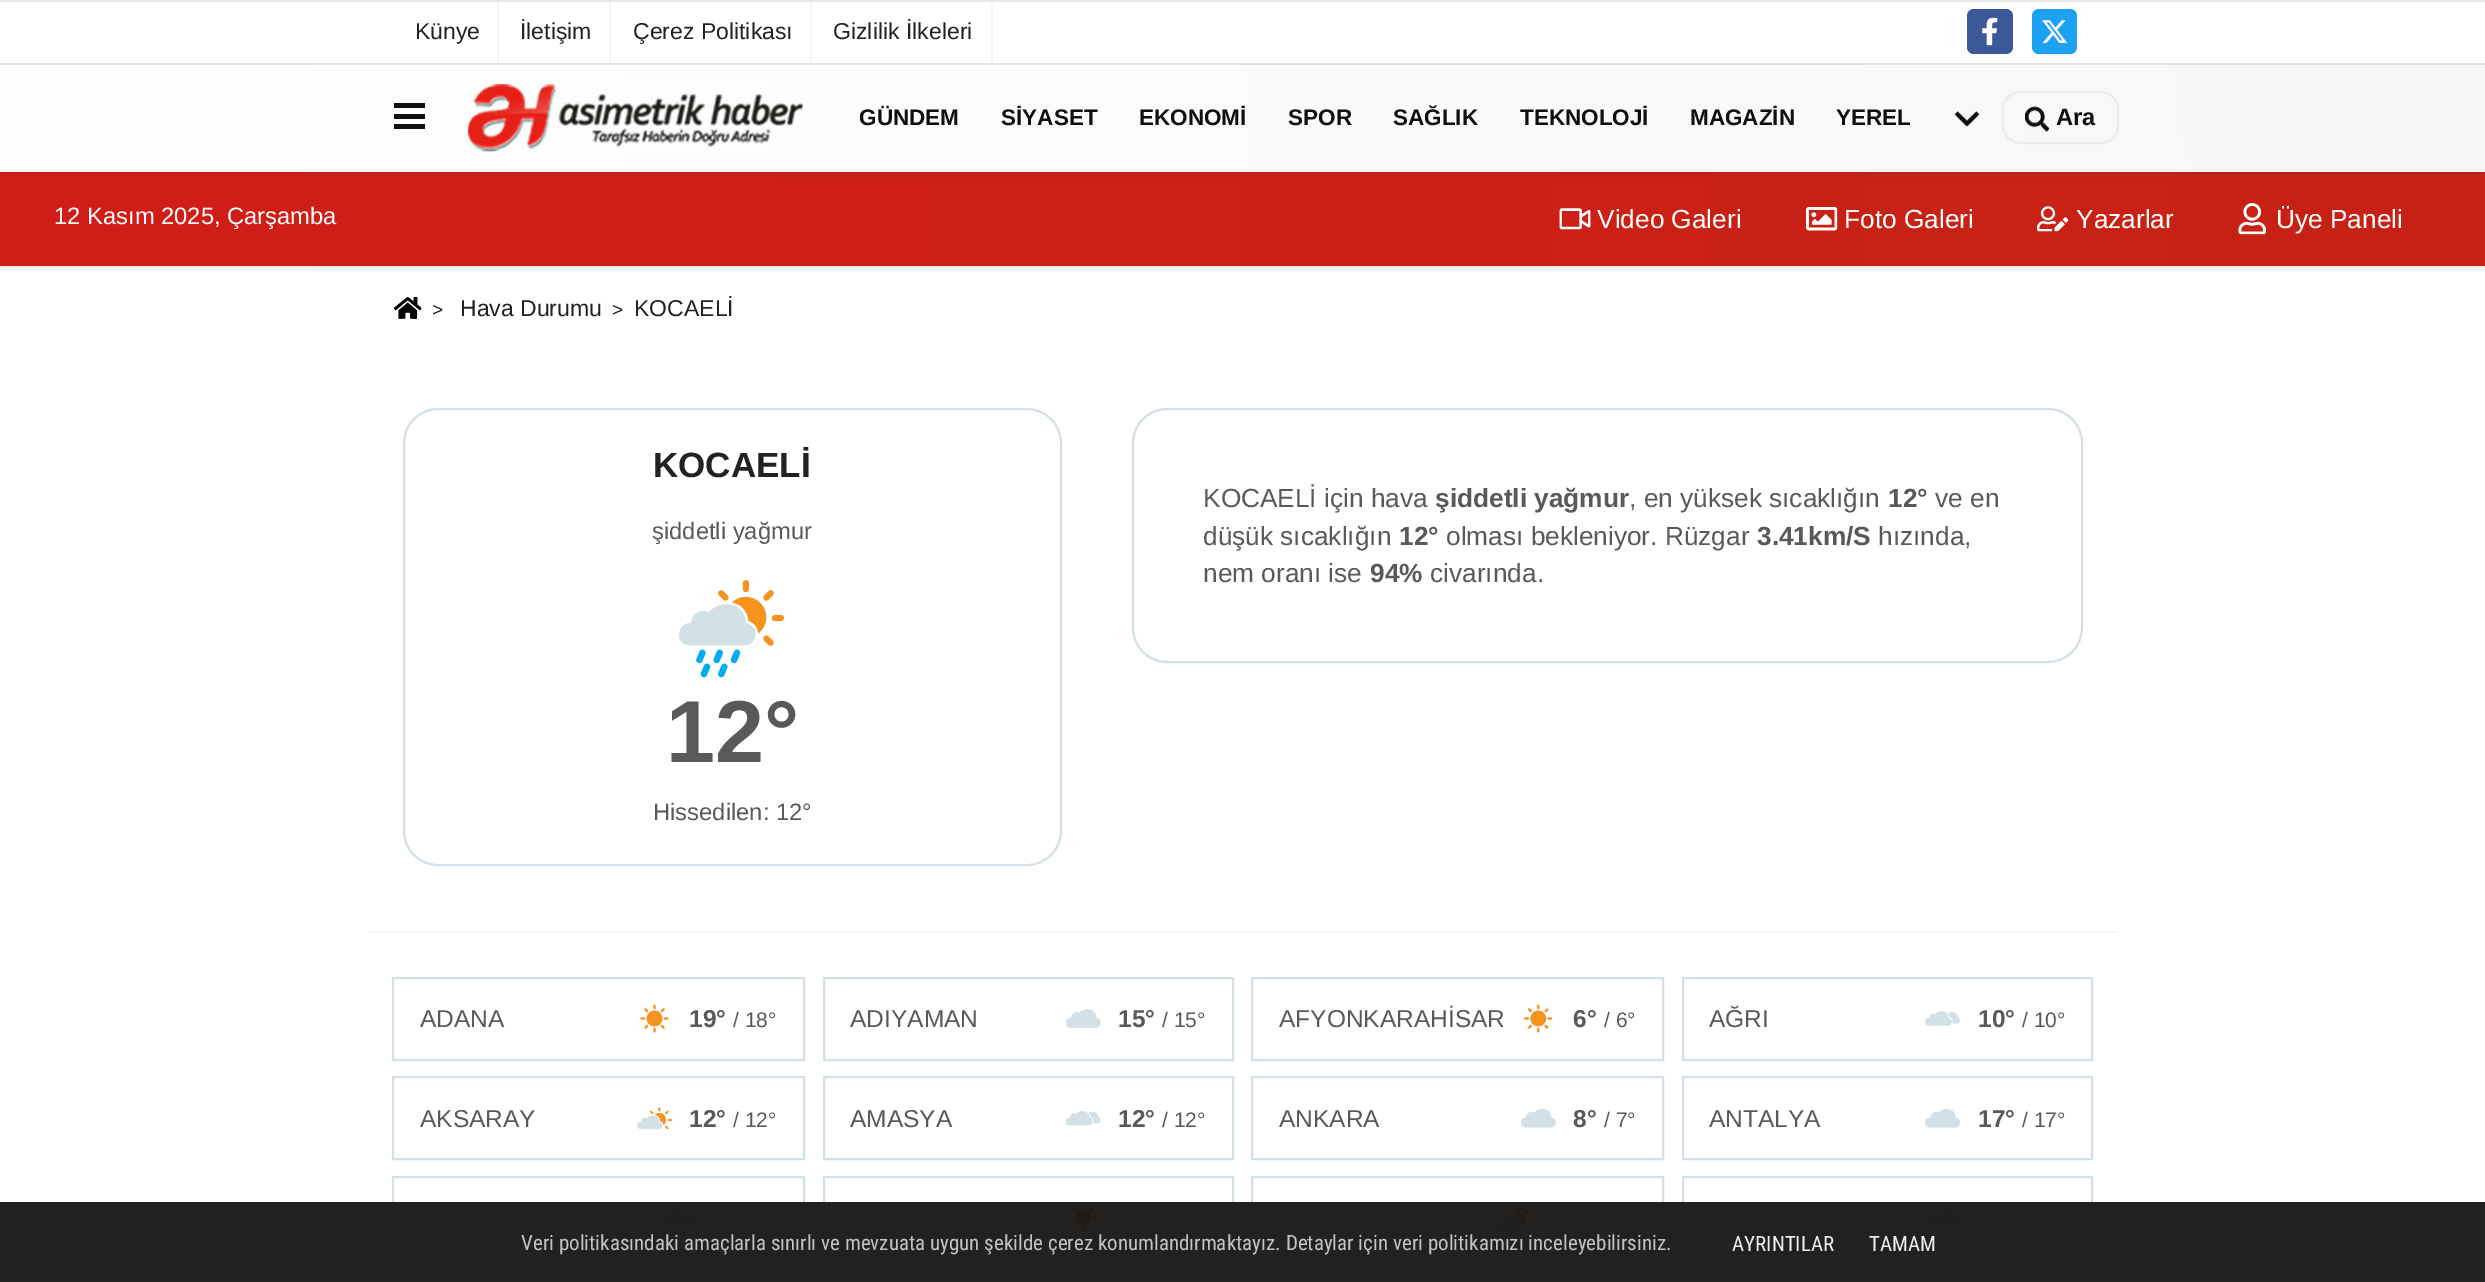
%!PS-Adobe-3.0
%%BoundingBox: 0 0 2485 1282
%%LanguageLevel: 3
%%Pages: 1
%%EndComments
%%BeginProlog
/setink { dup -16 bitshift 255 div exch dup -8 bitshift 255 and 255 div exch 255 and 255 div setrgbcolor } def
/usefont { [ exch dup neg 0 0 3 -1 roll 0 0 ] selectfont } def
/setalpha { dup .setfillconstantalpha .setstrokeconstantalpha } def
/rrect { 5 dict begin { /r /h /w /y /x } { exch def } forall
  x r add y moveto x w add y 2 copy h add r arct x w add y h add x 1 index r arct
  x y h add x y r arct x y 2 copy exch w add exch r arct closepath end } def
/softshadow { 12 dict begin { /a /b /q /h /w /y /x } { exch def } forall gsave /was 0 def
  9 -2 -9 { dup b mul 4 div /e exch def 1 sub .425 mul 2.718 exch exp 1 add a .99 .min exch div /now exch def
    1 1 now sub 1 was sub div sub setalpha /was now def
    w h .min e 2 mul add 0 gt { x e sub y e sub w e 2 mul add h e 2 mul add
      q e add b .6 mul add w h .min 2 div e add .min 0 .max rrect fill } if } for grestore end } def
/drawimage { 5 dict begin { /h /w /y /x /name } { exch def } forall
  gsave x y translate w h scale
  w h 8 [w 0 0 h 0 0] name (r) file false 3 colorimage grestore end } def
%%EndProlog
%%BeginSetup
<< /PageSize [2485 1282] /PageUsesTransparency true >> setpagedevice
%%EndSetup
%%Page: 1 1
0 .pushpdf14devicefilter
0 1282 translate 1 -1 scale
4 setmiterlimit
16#FFFFFF setink
0 0 2485 1282 rectfill
16#E6E6E6 setink
0 0 2485 2 rectfill
16#F5F5F5 setink
497 2 2 61 rectfill
/LiberationSans-Regular 23 usefont
16#222222 setink
415 39 moveto (Künye) show
16#F5F5F5 setink
609 2 2 61 rectfill
16#222222 setink
520 39 moveto (İletişim) show
16#F5F5F5 setink
810 2 2 61 rectfill
16#222222 setink
633 39 moveto (Çerez Politikası) show
16#F5F5F5 setink
991 2 2 61 rectfill
16#222222 setink
833 39 moveto (Gizlilik İlkeleri) show
16#3B5998 setink
1967 9 46 45 7 rrect fill
(img1.raw) 1982 17 16 29 drawimage
16#1DA1F2 setink
2032 9 45 45 7 rrect fill
(img2.raw) 2042 20 25 23 drawimage
16#E6E6E6 setink
0 63 2485 2 rectfill
16#000000 setink
0 173 2485 95 0 2 0.1 softshadow
gsave 0 172 moveto 2485 172 lineto 2485 266 lineto 0 266 lineto closepath clip newpath
<< /ShadingType 2 /ColorSpace /DeviceRGB /Coords [0 219 2485 219] /Extend [true true] /Function << /FunctionType 2 /Domain [0 1] /C0 [0.82 0.114 0.09] /C1 [0.78 0.133 0.086] /N 1 >> >> shfill grestore
0 67 2485 106 0 2 0.1 softshadow
gsave 0 65 moveto 2485 65 lineto 2485 170 lineto 0 170 lineto closepath clip newpath 2485 65 translate 2487 2487 scale
<< /ShadingType 3 /ColorSpace /DeviceRGB /Coords [0 0 0 0 0 1] /Extend [true true] /Function << /FunctionType 2 /Domain [0 1] /C0 [0.969 0.969 0.969] /C1 [1 1 1] /N 1 >> >> shfill grestore
[
    [0 170 2485 2 16#F5F5F5]
    [394 103 31 5 16#0F0F0F]
    [394 114 31 5 16#0F0F0F]
    [394 124 31 5 16#0F0F0F]
] { aload pop setink rectfill } forall
(img3.raw) 468 84 335 68 drawimage
/LiberationSans-Bold 22.5 usefont
[
    [(GÜNDEM) 859 125]
    [(SİYASET) 1001 125]
    [(EKONOMİ) 1139 125]
    [(SPOR) 1288 125]
    [(SAĞLIK) 1393 125]
    [(TEKNOLOJİ) 1520 125]
    [(MAGAZİN) 1690 125]
    [(YEREL) 1836 125]
] { aload pop moveto show } forall
(img4.raw) 1955 111 24 16 drawimage
16#ECECEC setink
2 setlinewidth
2003 92 115 51 17 rrect stroke
(img5.raw) 2025 106 24 26 drawimage
/LiberationSans-Bold 23.75 usefont
16#0F0F0F setink
2056 125 moveto (Ara) show
/LiberationSans-Regular 23.75 usefont
16#FFFFFF setink
54 224 moveto (12 Kasım 2025, Çarşamba) show
(img6.raw) 1559 208 32 22 drawimage
/LiberationSans-Regular 26.25 usefont
1597 228 moveto (Video Galeri) show
(img7.raw) 1806 207 32 24 drawimage
1844 228 moveto (Foto Galeri) show
(img8.raw) 2037 206 32 26 drawimage
2076 228 moveto (Yazarlar) show
(img9.raw) 2238 203 28 32 drawimage
2276 228 moveto (Üye Paneli) show
(img10.raw) 394 297 28 22 drawimage
/LiberationSans-Regular 19 usefont
16#222222 setink
432 316 moveto (>) show
/LiberationSans-Regular 23 usefont
460 316 moveto (Hava Durumu) show
/LiberationSans-Regular 19 usefont
612 316 moveto (>) show
/LiberationSans-Regular 23 usefont
634 316 moveto (KOCAELİ) show
16#D3E1E6 setink
404 409 657 456 34 rrect stroke
/LiberationSans-Bold 35 usefont
16#222222 setink
653 477 moveto (KOCAELİ) show
/LiberationSans-Regular 23.75 usefont
16#58595B setink
652 539 moveto (şiddetli yağmur) show
(img11.raw) 679 580 105 98 drawimage
/LiberationSans-Bold 88 usefont
666 762 moveto (12°) show
/LiberationSans-Regular 23.75 usefont
653 820 moveto (Hissedilen: 12°) show
16#D3E1E6 setink
1133 409 949 253 34 rrect stroke
/LiberationSans-Regular 26.25 usefont
16#58595B setink
1203 507 moveto (KOCAELİ için hava) show
/LiberationSans-Bold 26.25 usefont
1435 507 moveto (şiddetli yağmur) show
/LiberationSans-Regular 26.25 usefont
1629 507 moveto (, en yüksek sıcaklığın) show
/LiberationSans-Bold 26.25 usefont
1888 507 moveto (12°) show
/LiberationSans-Regular 26.25 usefont
1935 507 moveto (ve en) show
1203 545 moveto (düşük sıcaklığın) show
/LiberationSans-Bold 26.25 usefont
1399 545 moveto (12°) show
/LiberationSans-Regular 26.25 usefont
1446 545 moveto (olması bekleniyor. Rüzgar) show
/LiberationSans-Bold 26.25 usefont
1757 545 moveto (3.41km/S) show
/LiberationSans-Regular 26.25 usefont
1878 545 moveto (hızında,) show
1203 582 moveto (nem oranı ise) show
/LiberationSans-Bold 26.25 usefont
1370 582 moveto (94%) show
/LiberationSans-Regular 26.25 usefont
1430 582 moveto (civarında.) show
16#F3F5F6 setink
368 931 1750 2 rectfill
16#D3E1E6 setink
393 978 411 82 rectstroke
/LiberationSans-Regular 24.5 usefont
16#58595B setink
420 1027 moveto (ADANA) show
(img12.raw) 640 1004 29 29 drawimage
/LiberationSans-Bold 24.5 usefont
689 1027 moveto (19°) show
/LiberationSans-Regular 21 usefont
733 1027 moveto (/ 18°) show
16#D3E1E6 setink
824 978 409 82 rectstroke
/LiberationSans-Regular 24.5 usefont
16#58595B setink
850 1027 moveto (ADIYAMAN) show
(img13.raw) 1066 1009 35 19 drawimage
/LiberationSans-Bold 24.5 usefont
1118 1027 moveto (15°) show
/LiberationSans-Regular 21 usefont
1162 1027 moveto (/ 15°) show
16#D3E1E6 setink
1252 978 411 82 rectstroke
/LiberationSans-Regular 24.5 usefont
16#58595B setink
1279 1027 moveto (AFYONKARAHİSAR) show
(img14.raw) 1524 1004 29 29 drawimage
/LiberationSans-Bold 24.5 usefont
1573 1027 moveto (6°) show
/LiberationSans-Regular 21 usefont
1604 1027 moveto (/ 6°) show
16#D3E1E6 setink
1683 978 409 82 rectstroke
/LiberationSans-Regular 24.5 usefont
16#58595B setink
1709 1027 moveto (AĞRI) show
(img15.raw) 1925 1011 35 15 drawimage
/LiberationSans-Bold 24.5 usefont
1978 1027 moveto (10°) show
/LiberationSans-Regular 21 usefont
2022 1027 moveto (/ 10°) show
16#D3E1E6 setink
393 1077 411 82 rectstroke
/LiberationSans-Regular 24.5 usefont
16#58595B setink
420 1127 moveto (AKSARAY) show
(img16.raw) 637 1107 35 23 drawimage
/LiberationSans-Bold 24.5 usefont
689 1127 moveto (12°) show
/LiberationSans-Regular 21 usefont
733 1127 moveto (/ 12°) show
16#D3E1E6 setink
824 1077 409 82 rectstroke
/LiberationSans-Regular 24.5 usefont
16#58595B setink
850 1127 moveto (AMASYA) show
(img17.raw) 1066 1111 35 15 drawimage
/LiberationSans-Bold 24.5 usefont
1118 1127 moveto (12°) show
/LiberationSans-Regular 21 usefont
1162 1127 moveto (/ 12°) show
16#D3E1E6 setink
1252 1077 411 82 rectstroke
/LiberationSans-Regular 24.5 usefont
16#58595B setink
1279 1127 moveto (ANKARA) show
(img18.raw) 1521 1108 35 20 drawimage
/LiberationSans-Bold 24.5 usefont
1573 1127 moveto (8°) show
/LiberationSans-Regular 21 usefont
1604 1127 moveto (/ 7°) show
16#D3E1E6 setink
1683 1077 409 82 rectstroke
/LiberationSans-Regular 24.5 usefont
16#58595B setink
1709 1127 moveto (ANTALYA) show
(img19.raw) 1925 1108 35 20 drawimage
/LiberationSans-Bold 24.5 usefont
1978 1127 moveto (17°) show
/LiberationSans-Regular 21 usefont
2022 1127 moveto (/ 17°) show
16#D3E1E6 setink
393 1177 411 82 rectstroke
(img20.raw) 662 1210 35 16 drawimage
824 1177 409 82 rectstroke
(img21.raw) 1069 1204 29 28 drawimage
1252 1177 411 82 rectstroke
(img22.raw) 1496 1207 35 22 drawimage
1683 1177 409 82 rectstroke
(img23.raw) 1925 1209 35 18 drawimage
393 1277 411 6 rectstroke
824 1277 409 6 rectstroke
1252 1277 411 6 rectstroke
1683 1277 409 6 rectstroke
0.95 setalpha
16#171414 setink
0 1202 2485 80 rectfill
/RobotoCondensed-Regular 21 usefont
1 setalpha
16#C4C3C3 setink
521 1250 moveto (Veri politikasındaki amaçlarla sınırlı ve mevzuata uygun şekilde çerez konumlandırmaktayız. Detaylar için veri politikamızı inceleyebilirsiniz.) show
16#EFEFEF setink
1732 1251 moveto (AYRINTILAR) show
1869 1251 moveto (TAMAM) show
.poppdf14devicefilter showpage
%%EOF
